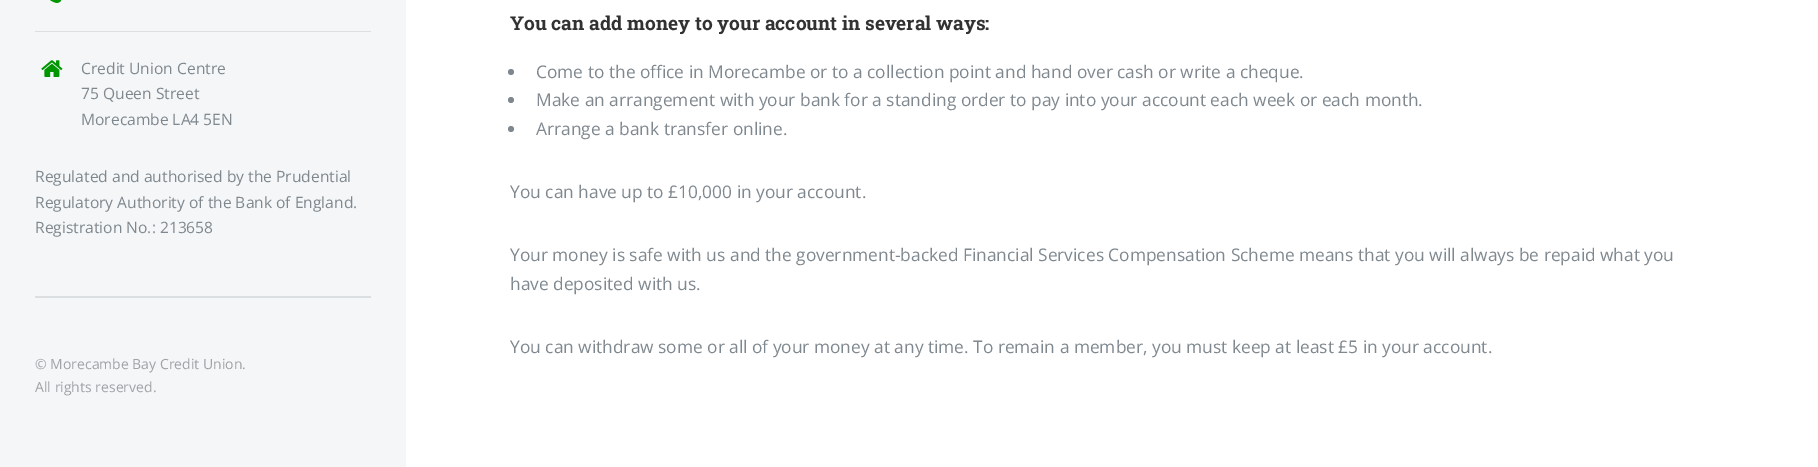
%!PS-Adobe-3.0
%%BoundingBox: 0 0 1818 467
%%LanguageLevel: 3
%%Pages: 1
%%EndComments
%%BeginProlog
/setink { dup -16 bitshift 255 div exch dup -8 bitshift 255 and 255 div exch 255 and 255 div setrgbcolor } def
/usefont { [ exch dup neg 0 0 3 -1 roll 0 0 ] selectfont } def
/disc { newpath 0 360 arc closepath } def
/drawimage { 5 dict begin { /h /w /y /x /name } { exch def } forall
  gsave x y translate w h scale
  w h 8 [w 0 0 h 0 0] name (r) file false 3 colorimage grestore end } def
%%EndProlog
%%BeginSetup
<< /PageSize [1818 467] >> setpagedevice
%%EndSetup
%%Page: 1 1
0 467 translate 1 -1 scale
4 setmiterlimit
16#FFFFFF setink
0 0 1818 467 rectfill
16#F5F6F7 setink
0 0 406 467 rectfill
16#DBDFE1 setink
35 296 336 2 rectfill
(img1.raw) 50 0 12 3 drawimage
35 31 336 1 rectfill
(img2.raw) 41 60 22 17 drawimage
/OpenSans-Regular 15.6 usefont
16#7F888F setink
[
    [(Credit Union Centre) 81 74]
    [(75 Queen Street) 81 99]
    [(Morecambe LA4 5EN) 81 125]
    [(Regulated and authorised by the Prudential) 35 182]
    [(Regulatory Authority of the Bank of England.) 35 208]
    [(Registration No.: 213658) 35 233]
] { aload pop moveto show } forall
/OpenSans-Regular 14 usefont
16#9FA3A6 setink
35 369 moveto (© Morecambe Bay Credit Union.) show
35 392 moveto (All rights reserved.) show
/RobotoSlab-Bold 19.1 usefont
16#323232 setink
510 30 moveto (You can add money to your account in several ways:) show
16#7F888F setink
511 72 3 disc fill
/OpenSans-Regular 17.33 usefont
536 78 moveto (Come to the office in Morecambe or to a collection point and hand over cash or write a cheque.) show
511 100 3 disc fill
536 106 moveto (Make an arrangement with your bank for a standing order to pay into your account each week or each month.) show
511 129 3 disc fill
[
    [(Arrange a bank transfer online.) 536 135]
    [(You can have up to £10,000 in your account.) 510 198]
    [(Your money is safe with us and the government-backed Financial Services Compensation Scheme means that you will always be repaid what you) 510 261]
    [(have deposited with us.) 510 290]
    [(You can withdraw some or all of your money at any time. To remain a member, you must keep at least £5 in your account.) 510 353]
] { aload pop moveto show } forall
showpage
%%EOF
